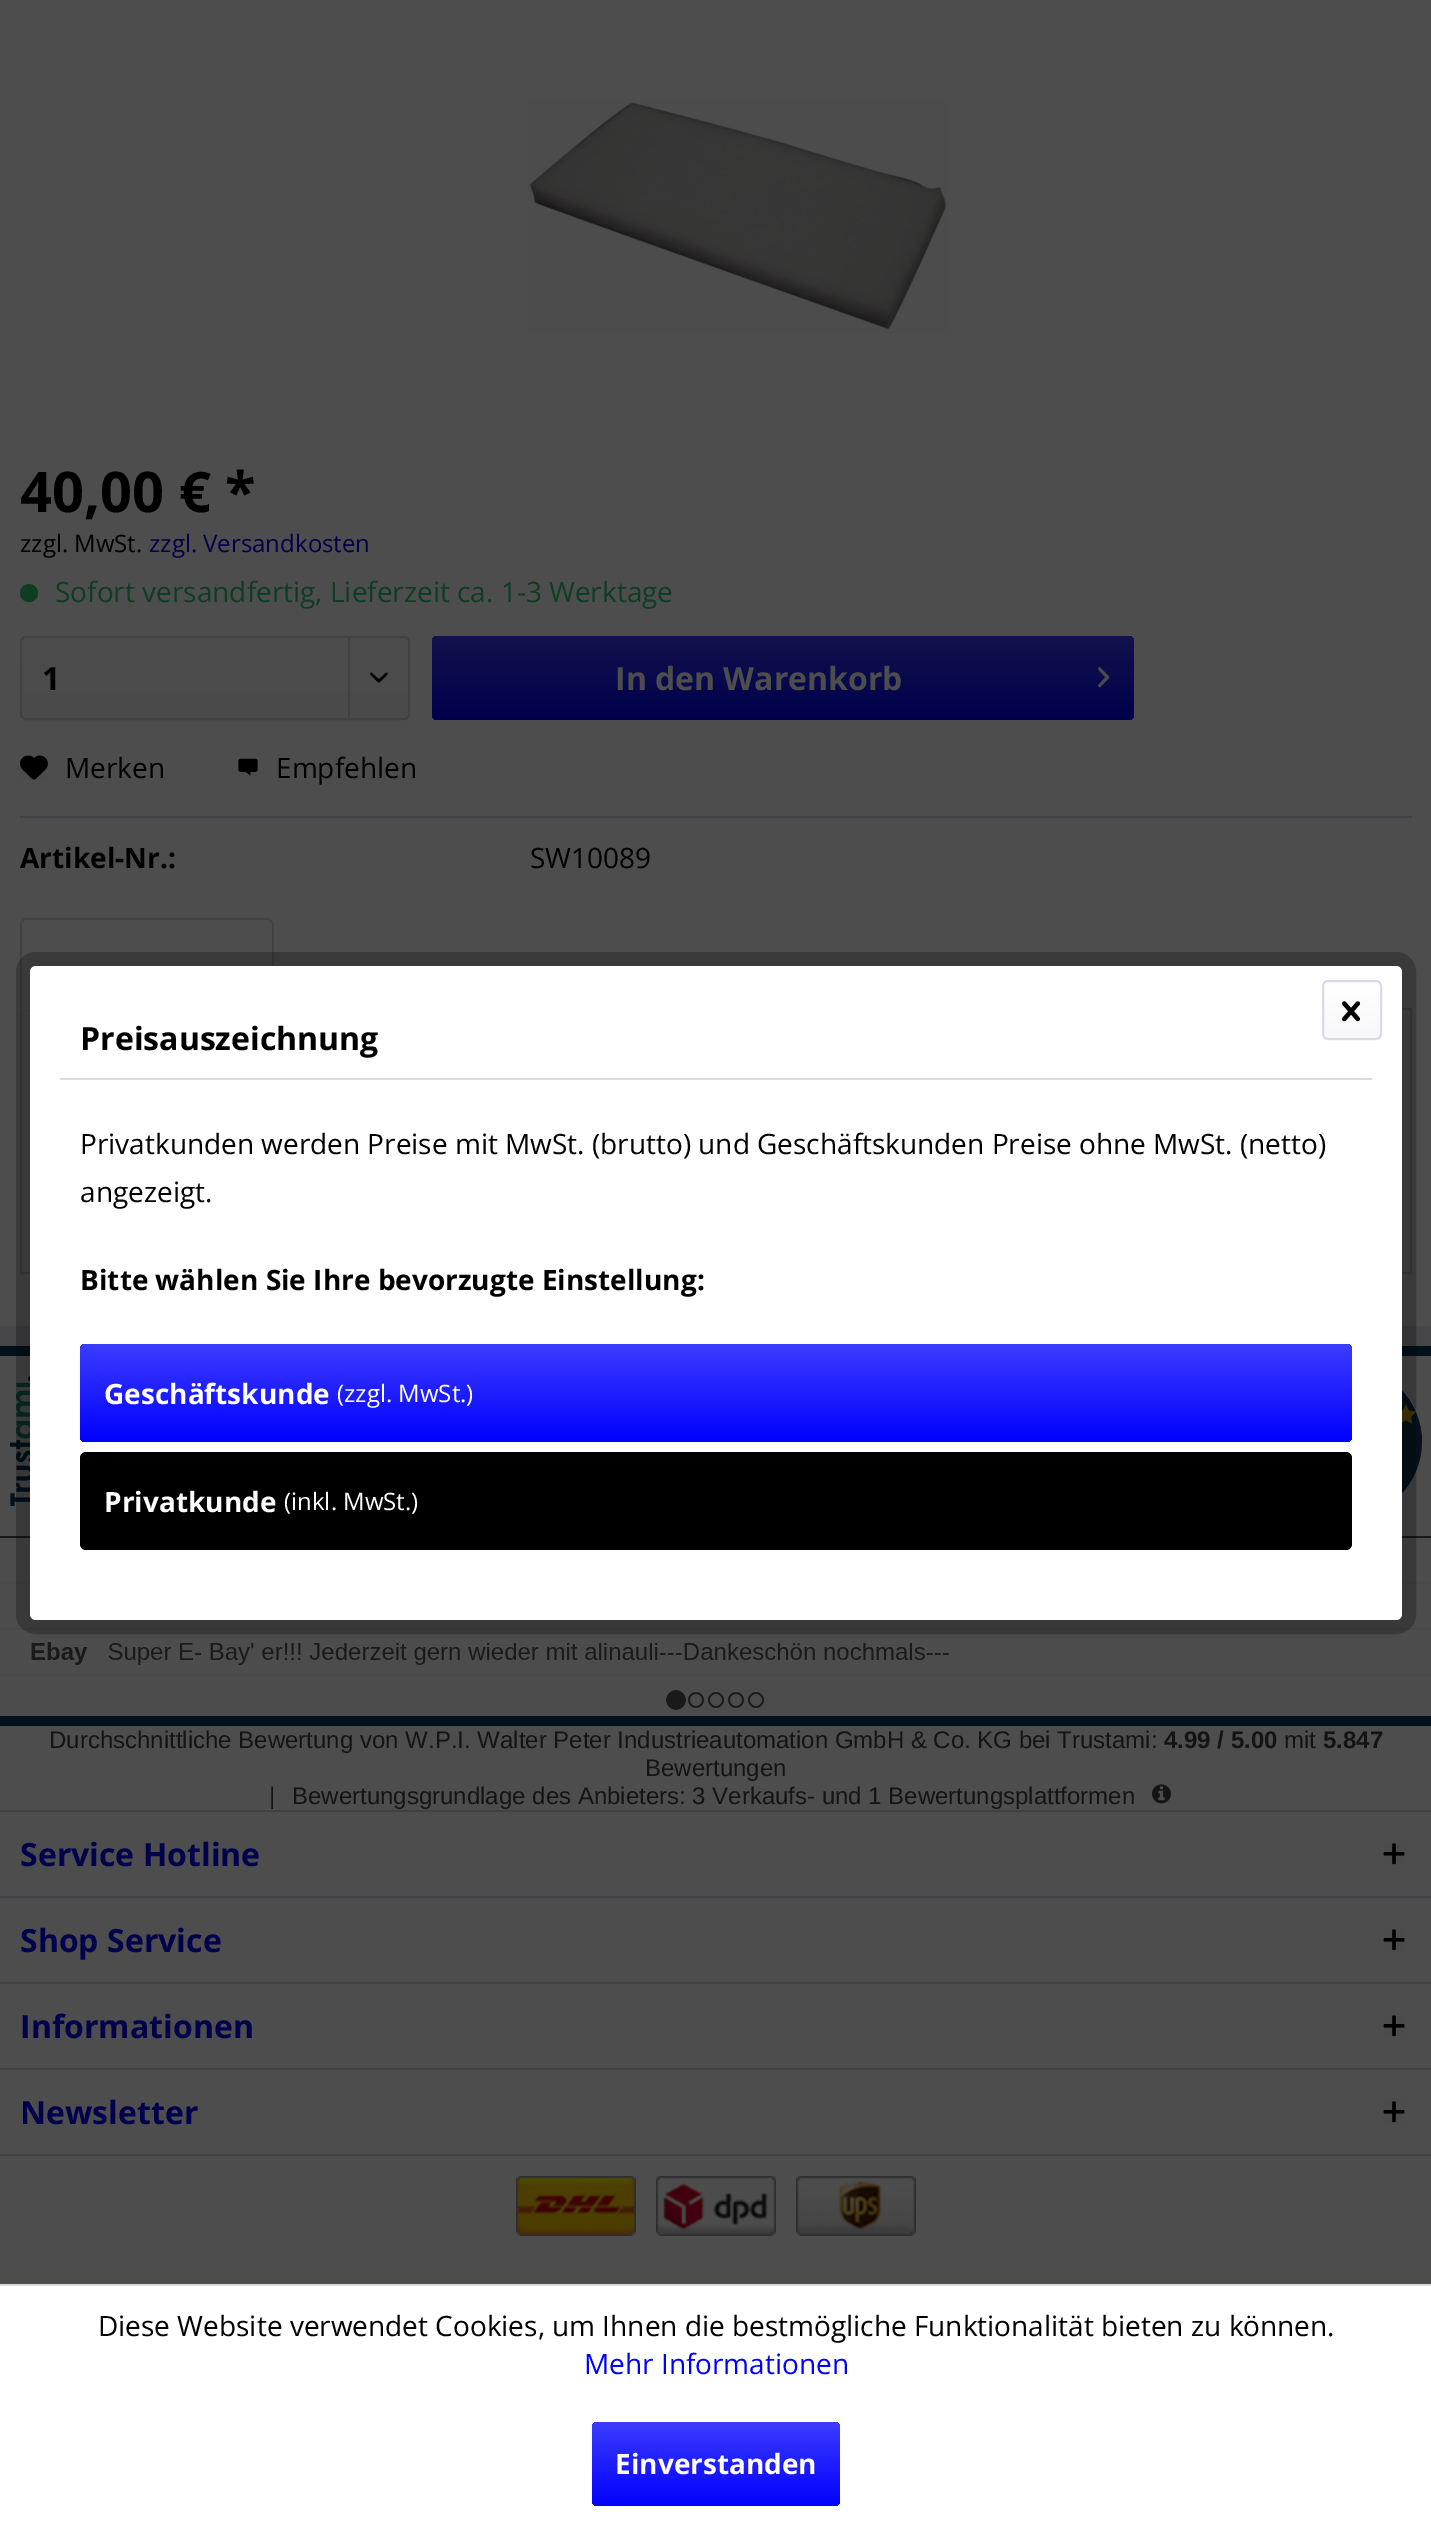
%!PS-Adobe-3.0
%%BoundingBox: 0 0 1431 2525
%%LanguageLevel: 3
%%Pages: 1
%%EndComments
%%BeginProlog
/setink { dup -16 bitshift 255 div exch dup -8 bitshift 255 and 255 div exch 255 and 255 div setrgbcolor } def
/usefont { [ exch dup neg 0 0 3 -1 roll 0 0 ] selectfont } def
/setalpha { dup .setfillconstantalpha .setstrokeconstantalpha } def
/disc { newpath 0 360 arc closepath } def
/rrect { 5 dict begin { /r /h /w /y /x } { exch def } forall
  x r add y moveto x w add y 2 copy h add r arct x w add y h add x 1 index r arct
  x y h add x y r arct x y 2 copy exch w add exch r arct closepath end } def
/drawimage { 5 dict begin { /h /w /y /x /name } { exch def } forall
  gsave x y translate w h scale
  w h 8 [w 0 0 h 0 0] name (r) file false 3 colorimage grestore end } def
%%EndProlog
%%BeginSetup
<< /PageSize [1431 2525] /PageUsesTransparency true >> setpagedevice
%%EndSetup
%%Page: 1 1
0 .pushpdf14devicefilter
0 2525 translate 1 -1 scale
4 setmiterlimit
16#464648 setink
0 0 1431 2525 rectfill
16#4D4D4D setink
0 0 1431 1326 rectfill
(img1.raw) 528 102 419 231 drawimage
/OpenSans-Bold 56 usefont
16#000000 setink
20 512 moveto (40,00 € *) show
/OpenSans-Regular 24 usefont
20 552 moveto (zzgl. MwSt.) show
16#00004C setink
149 552 moveto (zzgl. Versandkosten) show
16#0E3D22 setink
29 593 9 disc fill
/OpenSans-Regular 28 usefont
55 602 moveto (Sofort versandfertig, Lieferzeit ca. 1-3 Werktage) show
gsave 22 638 386 80 4 rrect clip newpath
<< /ShadingType 2 /ColorSpace /DeviceRGB /Coords [215 638 215 718] /Extend [true true] /Function << /FunctionType 2 /Domain [0 1] /C0 [0.302 0.302 0.302] /C1 [0.29 0.29 0.294] /N 1 >> >> shfill grestore
16#414145 setink
2 setlinewidth
21 637 388 82 5 rrect stroke
/OpenSans-Bold 32 usefont
16#000000 setink
42 690 moveto (1) show
16#414145 setink
348 638 2 80 rectfill
(img2.raw) 370 672 18 11 drawimage
gsave 432 636 702 84 6 rrect clip newpath
<< /ShadingType 2 /ColorSpace /DeviceRGB /Coords [783 636 783 720] /Extend [true true] /Function << /FunctionType 2 /Domain [0 1] /C0 [0.071 0.071 0.302] /C1 [0 0 0.298] /N 1 >> >> shfill grestore
16#4D4D4D setink
615 690 moveto (In den Warenkorb) show
(img3.raw) 1098 667 12 21 drawimage
16#414145 setink
20 816 1392 2 rectfill
(img4.raw) 20 755 28 25 drawimage
/OpenSans-Regular 28 usefont
16#000000 setink
65 778 moveto (Merken) show
(img5.raw) 238 758 20 18 drawimage
276 778 moveto (Empfehlen) show
/OpenSans-Bold 28 usefont
20 868 moveto (Artikel-Nr.:) show
/OpenSans-Regular 28 usefont
530 868 moveto (SW10089) show
16#414145 setink
21 1009 1390 264 rectstroke
16#4D4D4D setink
26 918 moveto 268 918 lineto 271.5 918 274 920.5 274 924 curveto 274 1010 lineto 20 1010 lineto 20 924 lineto 20 920.5 22.5 918 26 918 curveto closepath fill
16#414145 setink
26 918 moveto 24 918 23 919 22 920 curveto 23 921 lineto 24 920 25 920 26 920 curveto 268 920 lineto 269 920 270 920 271 921 curveto 272 920 lineto 271 919 270 918 268 918 curveto closepath fill
274 1010 moveto 274 923 lineto 272 920 lineto 271 921 lineto 272 924 lineto 272 1008 lineto closepath fill
16#4D4D4D setink
274 1010 moveto 272 1008 lineto 22 1008 lineto 20 1010 lineto closepath fill
16#414145 setink
20 1010 moveto 22 1008 lineto 22 924 lineto 23 921 lineto 22 920 lineto 21 921 20 922 20 924 curveto closepath fill
16#4D4D4D setink
0 1726 1431 558 rectfill
(img6.raw) 0 1346 1431 380 drawimage
/LiberationSans-Regular 24 usefont
16#141414 setink
49 1748 moveto (Durchschnittliche Bewertung von W.P.I. Walter Peter Industrieautomation GmbH & Co. KG bei Trustami:) show
/LiberationSans-Bold 24 usefont
1164 1748 moveto (4.99 / 5.00) show
/LiberationSans-Regular 24 usefont
1284 1748 moveto (mit) show
/LiberationSans-Bold 24 usefont
1323 1748 moveto (5.847) show
/LiberationSans-Regular 24 usefont
[
    [(Bewertungen) 645 1776]
    [(|) 269 1804]
    [(Bewertungsgrundlage des Anbieters: 3 Verkaufs- und 1 Bewertungsplattformen) 292 1804]
] { aload pop moveto show } forall
(img7.raw) 1152 1784 19 20 drawimage
16#414145 setink
0 1810 1431 2 rectfill
/OpenSans-Bold 32 usefont
16#00004C setink
20 1866 moveto (Service Hotline) show
(img8.raw) 1383 1843 22 22 drawimage
16#414145 setink
0 1896 1431 2 rectfill
16#00004C setink
20 1952 moveto (Shop Service) show
(img8.raw) 1383 1929 22 22 drawimage
16#414145 setink
0 1982 1431 2 rectfill
16#00004C setink
20 2038 moveto (Informationen) show
(img8.raw) 1383 2015 22 22 drawimage
16#414145 setink
0 2068 1431 2 rectfill
0 2154 1431 2 rectfill
16#00004C setink
20 2124 moveto (Newsletter) show
(img8.raw) 1383 2101 22 22 drawimage
(img9.raw) 516 2176 120 60 drawimage
(img10.raw) 656 2176 120 60 drawimage
(img11.raw) 796 2176 120 60 drawimage
0.25 setalpha
16#000000 setink
14 setlinewidth
23 959 1386 668 13 rrect stroke
1 setalpha
16#FFFFFF setink
30 966 1372 654 6 rrect fill
16#DADAE5 setink
60 1078 1312 2 rectfill
16#000000 setink
80 1050 moveto (Preisauszeichnung) show
gsave 1324 982 56 56 4 rrect clip newpath
<< /ShadingType 2 /ColorSpace /DeviceRGB /Coords [1352 982 1352 1038] /Extend [true true] /Function << /FunctionType 2 /Domain [0 1] /C0 [1 1 1] /C1 [0.973 0.973 0.98] /N 1 >> >> shfill grestore
16#DADAE5 setink
2 setlinewidth
1323 981 58 58 5 rrect stroke
(img12.raw) 1342 1001 19 21 drawimage
/OpenSans-Regular 28 usefont
16#000000 setink
80 1154 moveto (Privatkunden werden Preise mit MwSt. \(brutto\) und Geschäftskunden Preise ohne MwSt. \(netto\)) show
80 1202 moveto (angezeigt.) show
/OpenSans-Bold 28 usefont
80 1290 moveto (Bitte wählen Sie Ihre bevorzugte Einstellung:) show
gsave 80 1344 1272 98 6 rrect clip newpath
<< /ShadingType 2 /ColorSpace /DeviceRGB /Coords [716 1344 716 1442] /Extend [true true] /Function << /FunctionType 2 /Domain [0 1] /C0 [0.235 0.235 1] /C1 [0 0 0.996] /N 1 >> >> shfill grestore
16#FFFFFF setink
104 1404 moveto (Geschäftskunde) show
/OpenSans-Regular 24 usefont
337 1402 moveto (\(zzgl. MwSt.\)) show
16#000000 setink
80 1452 1272 98 6 rrect fill
/OpenSans-Bold 28 usefont
16#FFFFFF setink
104 1512 moveto (Privatkunde) show
/OpenSans-Regular 24 usefont
284 1510 moveto (\(inkl. MwSt.\)) show
0 2286 1431 239 rectfill
16#DADAE5 setink
0 2284 1431 2 rectfill
/OpenSans-Regular 28 usefont
16#000000 setink
98 2336 moveto (Diese Website verwendet Cookies, um Ihnen die bestmögliche Funktionalität bieten zu können.) show
16#0000FE setink
584 2374 moveto (Mehr Informationen) show
gsave 592 2422 248 84 6 rrect clip newpath
<< /ShadingType 2 /ColorSpace /DeviceRGB /Coords [716 2422 716 2506] /Extend [true true] /Function << /FunctionType 2 /Domain [0 1] /C0 [0.235 0.235 1] /C1 [0 0 0.996] /N 1 >> >> shfill grestore
/OpenSans-Bold 28 usefont
16#FFFFFF setink
615 2474 moveto (Einverstanden) show
.poppdf14devicefilter showpage
%%EOF
